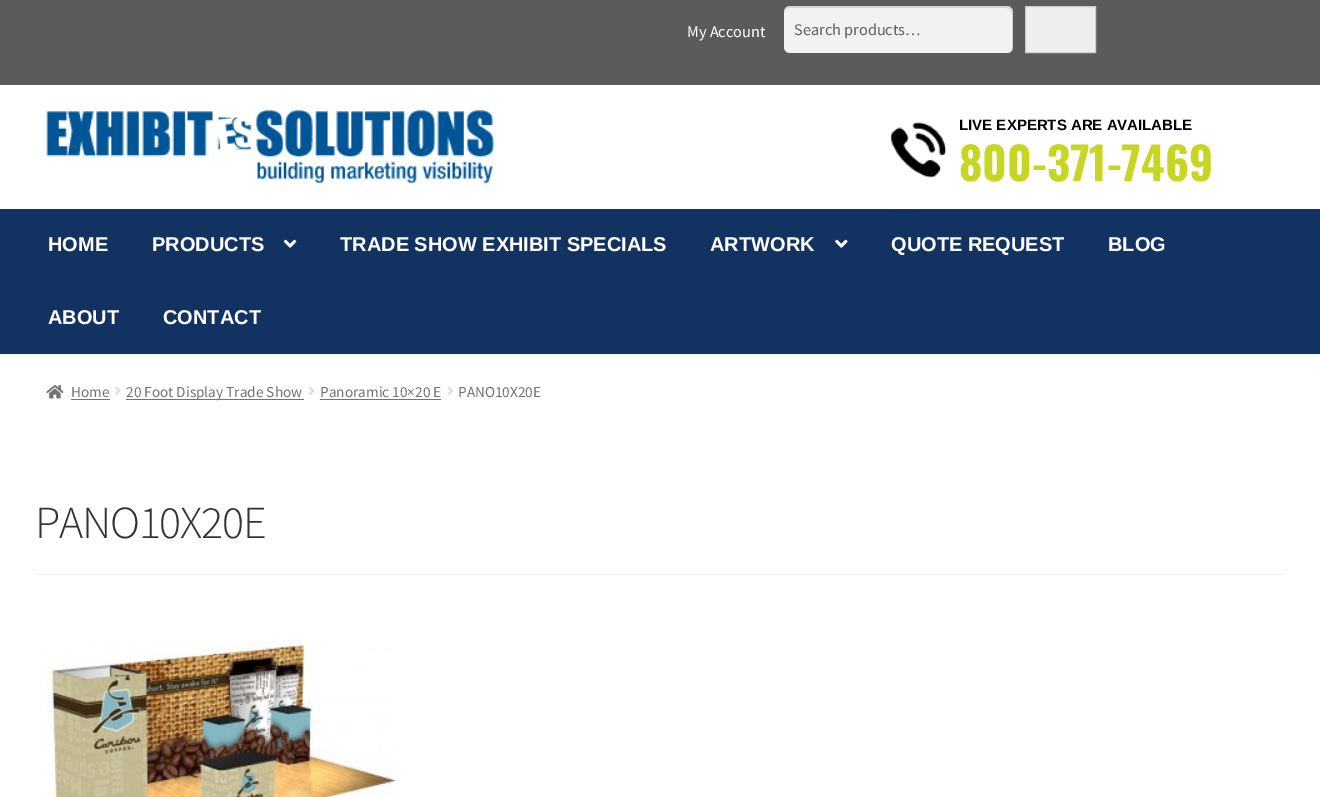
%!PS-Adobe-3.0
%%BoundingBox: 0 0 1320 797
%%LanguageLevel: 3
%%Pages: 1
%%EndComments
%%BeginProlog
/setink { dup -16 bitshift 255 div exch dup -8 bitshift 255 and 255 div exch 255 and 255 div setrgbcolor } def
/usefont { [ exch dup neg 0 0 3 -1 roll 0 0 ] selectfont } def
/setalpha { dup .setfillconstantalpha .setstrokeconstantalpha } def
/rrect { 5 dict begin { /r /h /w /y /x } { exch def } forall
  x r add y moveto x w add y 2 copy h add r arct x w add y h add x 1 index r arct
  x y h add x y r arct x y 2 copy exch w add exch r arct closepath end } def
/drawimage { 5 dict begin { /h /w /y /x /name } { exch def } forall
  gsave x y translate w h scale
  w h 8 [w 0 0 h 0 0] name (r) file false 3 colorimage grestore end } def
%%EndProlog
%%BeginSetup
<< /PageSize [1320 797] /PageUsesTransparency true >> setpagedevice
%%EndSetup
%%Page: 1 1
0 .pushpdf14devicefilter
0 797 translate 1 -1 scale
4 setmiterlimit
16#FFFFFF setink
0 0 1320 797 rectfill
16#5B5B5B setink
0 0 1320 85 rectfill
/SourceSansPro-Regular 16.25 usefont
16#FFFFFF setink
687 37 moveto (My Account) show
16#F2F2F2 setink
784 6 229 47 6 rrect fill
0.12 setalpha
16#000000 setink
790 8 moveto 1006 8 lineto 1010 8 1012 10 1012 14 curveto 1012 48 lineto 1012 49 1012 50 1011 51 curveto 1012 50 1013 49 1013 47 curveto 1013 12 lineto 1013 9 1010 6 1007 6 curveto 790 6 lineto 787 6 784 9 784 12 curveto 784 14 lineto 784 10 787 8 790 8 curveto closepath fill
1 setalpha
16#616161 setink
794 35 moveto (Search products…) show
16#EEEEEE setink
1025.5 6.5 moveto 1095.5 6.5 lineto 1095.5 52.5 lineto 1025.5 52.5 lineto closepath gsave fill grestore
16#CCCCCC setink
stroke
16#F0F0F0 setink
0 354 1320 1 rectfill
(img1.raw) 46 110 448 74 drawimage
(img2.raw) 890 122 56 56 drawimage
/LiberationSans-Bold 15 usefont
16#000000 setink
959 130 moveto (LIVE EXPERTS ARE AVAILABLE) show
/Oswald-Bold 45 usefont
16#C8D623 setink
959 181 moveto (800-371-7469) show
16#123261 setink
0 209 1320 145 rectfill
/LiberationSans-Bold 20 usefont
16#FFFFFF setink
48 251 moveto (HOME) show
152 251 moveto (PRODUCTS) show
(img3.raw) 283 239 14 9 drawimage
340 251 moveto (TRADE SHOW EXHIBIT SPECIALS) show
710 251 moveto (ARTWORK) show
(img4.raw) 835 239 13 9 drawimage
[
    [(QUOTE REQUEST) 891 251]
    [(BLOG) 1108 251]
    [(ABOUT) 48 324]
    [(CONTACT) 163 324]
] { aload pop moveto show } forall
(img5.raw) 46 385 18 14 drawimage
/SourceSansPro-Regular 15.25 usefont
16#727272 setink
71 397 moveto (Home) show
71 399 39 1 rectfill
(img6.raw) 115 386 6 9 drawimage
126 399 178 1 rectfill
126 397 moveto (20 Foot Display Trade Show) show
(img7.raw) 309 386 6 9 drawimage
320 397 moveto (Panoramic 10×20 E) show
320 399 121 1 rectfill
(img8.raw) 447 386 6 9 drawimage
458 397 moveto (PANO10X20E) show
16#F2F2F2 setink
35 574 1250 1 rectfill
/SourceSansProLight-Light 46 usefont
16#333333 setink
35 538 moveto -1.25 0 (PANO10X20E) ashow
(img9.raw) 39 641 358 156 drawimage
.poppdf14devicefilter showpage
%%EOF
